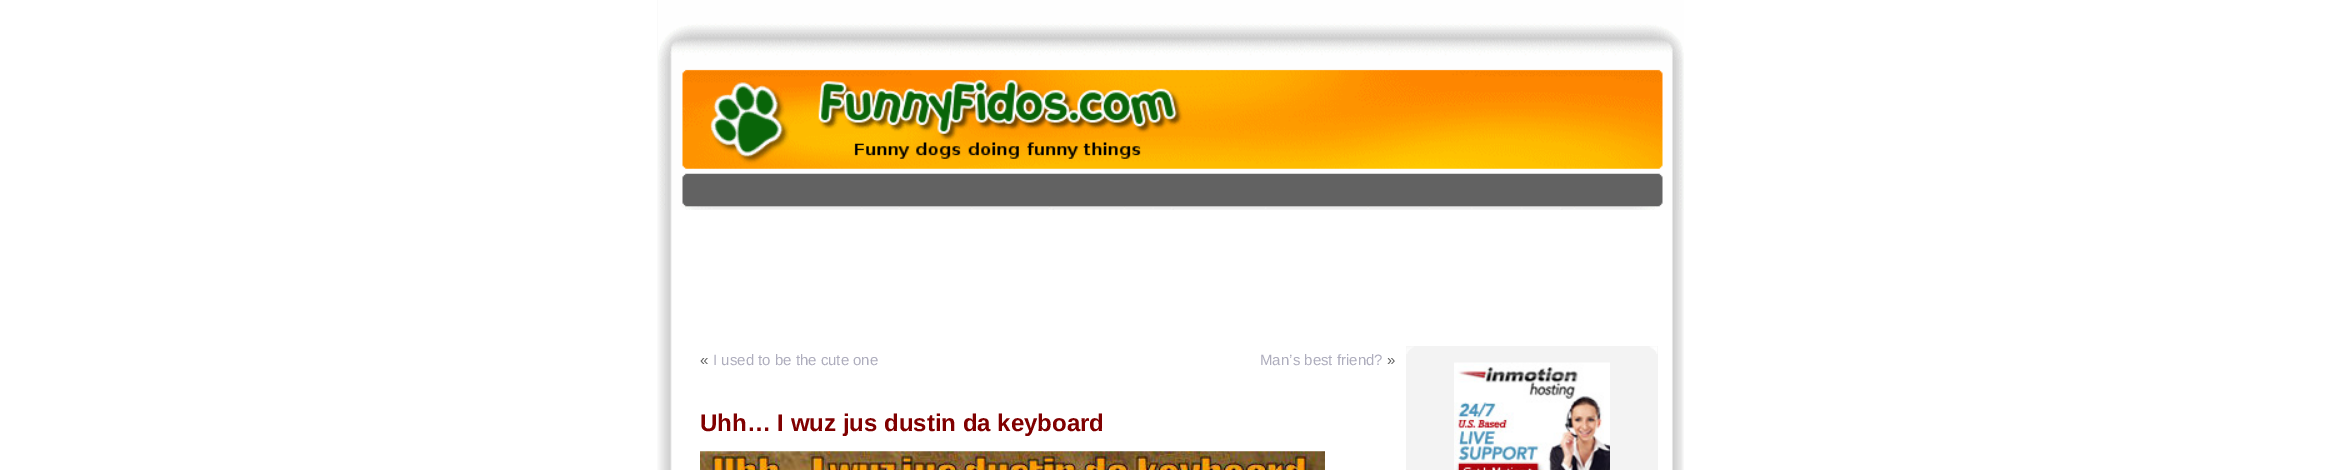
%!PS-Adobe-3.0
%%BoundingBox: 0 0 2327 470
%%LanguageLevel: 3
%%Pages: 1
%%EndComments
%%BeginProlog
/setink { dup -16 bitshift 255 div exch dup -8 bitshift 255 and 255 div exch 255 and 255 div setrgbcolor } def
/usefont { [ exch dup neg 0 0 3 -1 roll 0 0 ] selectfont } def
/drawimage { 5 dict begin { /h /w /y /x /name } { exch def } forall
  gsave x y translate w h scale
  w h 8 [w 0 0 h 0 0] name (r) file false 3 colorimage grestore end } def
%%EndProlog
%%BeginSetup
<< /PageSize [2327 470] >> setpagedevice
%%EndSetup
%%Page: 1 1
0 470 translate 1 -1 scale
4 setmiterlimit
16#FFFFFF setink
0 0 2327 470 rectfill
(img1.raw) 657 0 1027 470 drawimage
(img2.raw) 658 0 1026 169 drawimage
(img3.raw) 660 28 1024 182 drawimage
/LiberationSans-Regular 15 usefont
16#626262 setink
700 365 moveto («) show
16#AEADBD setink
713 365 moveto (I used to be the cute one) show
1260 365 moveto (Man’s best friend?) show
16#626262 setink
1387 365 moveto (») show
/LiberationSans-Bold 24 usefont
16#800000 setink
700 431 moveto (Uhh… I wuz jus dustin da keyboard) show
(img4.raw) 700 451 625 19 drawimage
16#F3F3F3 setink
1406 346 252 124 rectfill
(img5.raw) 1406 346 252 8 drawimage
(img6.raw) 1454 362 156 108 drawimage
showpage
%%EOF
